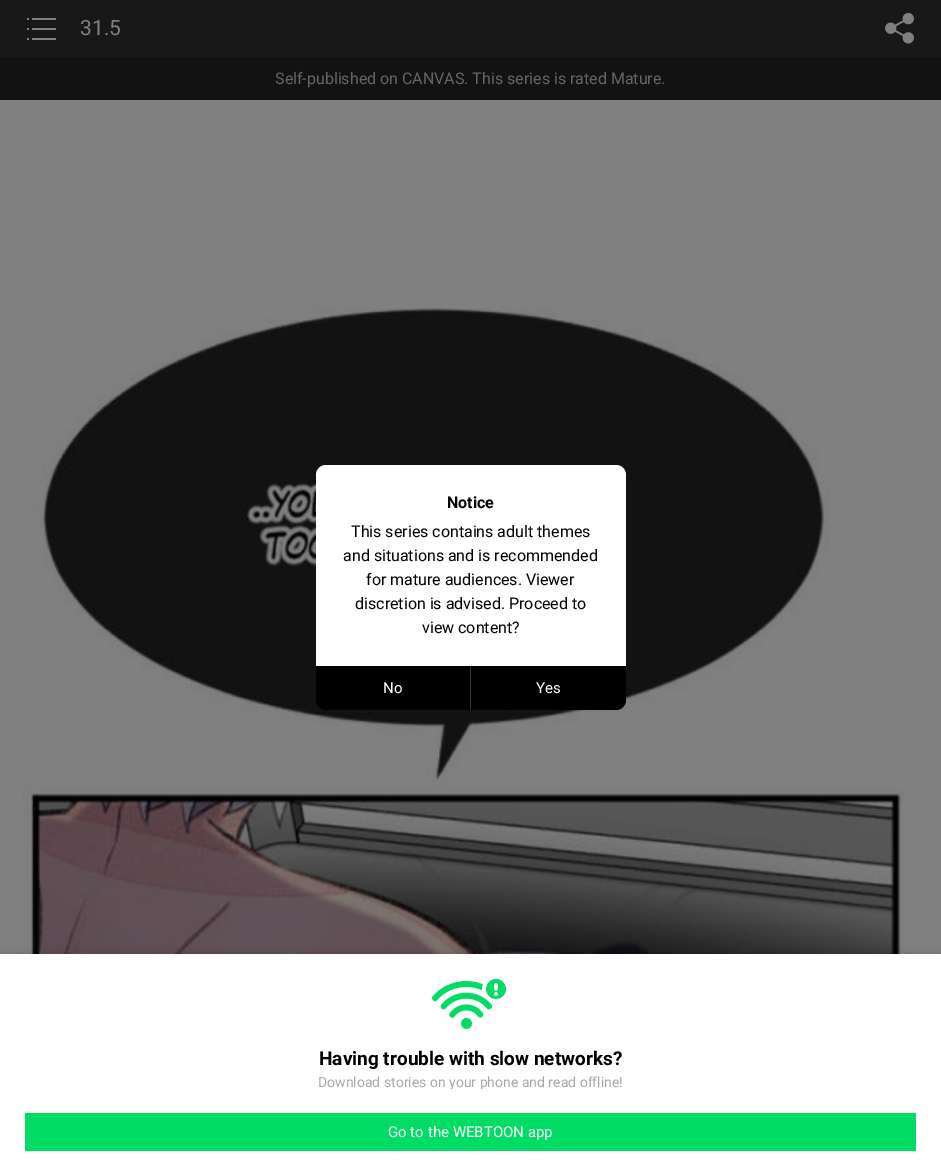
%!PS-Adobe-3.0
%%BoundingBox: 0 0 941 1175
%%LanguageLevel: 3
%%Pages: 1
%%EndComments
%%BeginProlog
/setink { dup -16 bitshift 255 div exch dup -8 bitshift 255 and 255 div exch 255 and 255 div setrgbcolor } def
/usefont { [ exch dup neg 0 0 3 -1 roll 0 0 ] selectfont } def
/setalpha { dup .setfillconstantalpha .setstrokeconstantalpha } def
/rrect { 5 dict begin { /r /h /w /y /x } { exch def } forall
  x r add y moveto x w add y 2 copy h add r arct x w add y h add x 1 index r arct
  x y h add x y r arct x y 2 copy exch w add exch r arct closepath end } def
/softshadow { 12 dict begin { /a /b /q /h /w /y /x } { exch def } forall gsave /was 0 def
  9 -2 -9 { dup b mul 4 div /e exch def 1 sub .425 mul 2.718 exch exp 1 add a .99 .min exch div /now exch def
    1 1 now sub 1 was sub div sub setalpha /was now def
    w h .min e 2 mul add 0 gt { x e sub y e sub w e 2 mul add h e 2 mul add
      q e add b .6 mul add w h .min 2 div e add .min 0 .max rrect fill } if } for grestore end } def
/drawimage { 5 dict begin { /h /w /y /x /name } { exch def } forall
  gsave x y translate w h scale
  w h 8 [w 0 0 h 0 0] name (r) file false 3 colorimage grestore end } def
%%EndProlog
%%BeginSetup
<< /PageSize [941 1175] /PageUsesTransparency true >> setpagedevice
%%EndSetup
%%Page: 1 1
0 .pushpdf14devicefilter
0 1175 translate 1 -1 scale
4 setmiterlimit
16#808080 setink
0 0 941 1175 rectfill
16#181818 setink
0 0 941 57 rectfill
(img1.raw) 27 18 29 22 drawimage
/Roboto-Regular 21 usefont
16#808080 setink
80 35 moveto (31.5) show
(img2.raw) 885 13 29 31 drawimage
16#121212 setink
0 57 941 43 rectfill
/Roboto-Regular 16 usefont
16#656565 setink
275 84 moveto (Self-published on CANVAS. This series is rated Mature.) show
(img3.raw) 22 307 883 647 drawimage
16#FFFFFF setink
326 465 moveto 616 465 lineto 621.5 465 626 469.5 626 475 curveto 626 666 lineto 316 666 lineto 316 475 lineto 316 469.5 320.5 465 326 465 curveto closepath fill
/Roboto-Bold 16 usefont
16#000000 setink
447 508 moveto (Notice) show
/Roboto-Regular 16 usefont
[
    [(This series contains adult themes) 351 537]
    [(and situations and is recommended) 343 561]
    [(for mature audiences. Viewer) 366 585]
    [(discretion is advised. Proceed to) 355 609]
    [(view content?) 422 633]
] { aload pop moveto show } forall
316 666 moveto 626 666 lineto 626 700 lineto 626 705.5 621.5 710 616 710 curveto 326 710 lineto 320.5 710 316 705.5 316 700 curveto closepath fill
/Roboto-Regular 15 usefont
16#FFFFFF setink
383 693 moveto (No) show
16#333333 setink
470 666 1 44 rectfill
16#FFFFFF setink
536 693 moveto (Yes) show
16#000000 setink
0 956 941 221 0 5 0.2 softshadow
16#FFFFFF setink
0 954 941 221 rectfill
(img4.raw) 432 979 74 50 drawimage
/Roboto-Bold 19 usefont
16#000000 setink
319 1065 moveto (Having trouble with slow networks?) show
gsave
25 1075 891 14 rectclip
/Roboto-Regular 14 usefont
16#A8A8A8 setink
318 1087 moveto (Download stories on your phone and read offline!) show
grestore
16#00DC64 setink
25 1113 891 38 rectfill
/Roboto-Regular 15 usefont
16#FFFFFF setink
388 1137 moveto (Go to the WEBTOON app) show
.poppdf14devicefilter showpage
%%EOF
